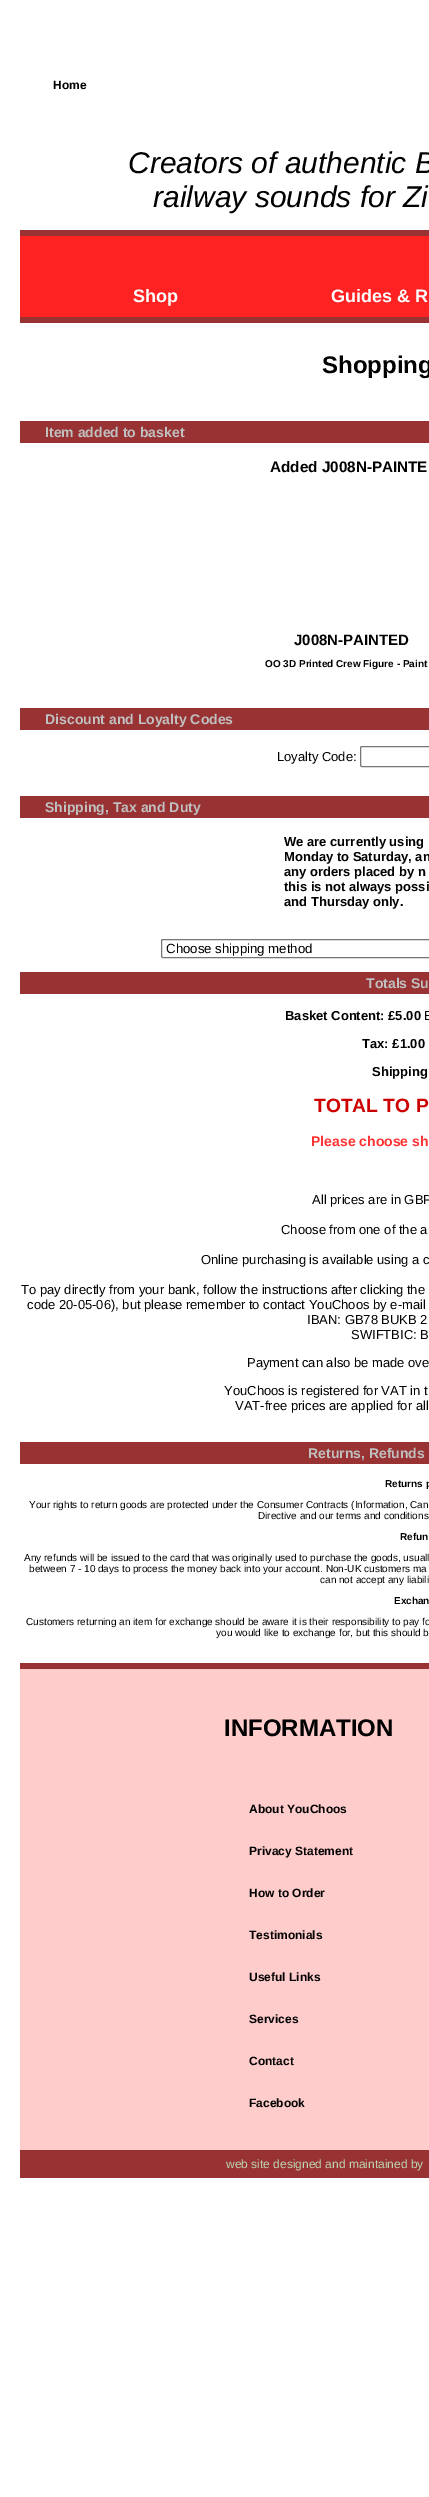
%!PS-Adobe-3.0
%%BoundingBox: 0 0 429 2497
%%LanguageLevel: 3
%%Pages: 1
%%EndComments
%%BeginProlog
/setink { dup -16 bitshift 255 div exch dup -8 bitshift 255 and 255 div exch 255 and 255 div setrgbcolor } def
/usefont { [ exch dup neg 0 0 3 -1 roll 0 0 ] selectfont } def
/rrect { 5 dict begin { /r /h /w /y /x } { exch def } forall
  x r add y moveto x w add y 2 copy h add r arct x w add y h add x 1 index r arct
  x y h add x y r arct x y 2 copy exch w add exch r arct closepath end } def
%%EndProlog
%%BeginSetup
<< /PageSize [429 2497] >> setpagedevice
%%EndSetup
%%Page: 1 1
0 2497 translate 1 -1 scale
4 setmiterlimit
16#FFFFFF setink
0 0 429 2497 rectfill
/LiberationSans-Bold 12 usefont
16#000000 setink
53 89 moveto (Home) show
/LiberationSans-Italic 30 usefont
128 173 moveto (Creators of authentic B) show
153 207 moveto (railway sounds for Zi) show
16#993333 setink
20 230 409 6 rectfill
16#FF2222 setink
20 236 409 81 rectfill
/LiberationSans-Bold 18 usefont
16#FFFFFF setink
133 302 moveto (Shop) show
331 302 moveto (Guides & R) show
16#993333 setink
20 317 409 6 rectfill
/LiberationSans-Bold 24 usefont
16#000000 setink
322 373 moveto (Shopping) show
16#993333 setink
20 421 409 22 rectfill
/LiberationSans-Bold 14 usefont
16#C0C0C0 setink
45 437 moveto (Item added to basket) show
/LiberationSans-Bold 15.25 usefont
16#000000 setink
270 472 moveto (Added J008N-PAINTE) show
/LiberationSans-Bold 15 usefont
294 645 moveto (J008N-PAINTED) show
/LiberationSans-Bold 10 usefont
265 667 moveto (OO 3D Printed Crew Figure - Paint) show
16#993333 setink
20 708 409 22 rectfill
/LiberationSans-Bold 14 usefont
16#C0C0C0 setink
45 724 moveto (Discount and Loyalty Codes) show
/LiberationSans-Regular 13 usefont
16#000000 setink
277 761 moveto (Loyalty Code:) show
16#767676 setink
360.5 746.5 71 20 1.5 rrect stroke
16#993333 setink
20 796 409 22 rectfill
/LiberationSans-Bold 14 usefont
16#C0C0C0 setink
45 812 moveto (Shipping, Tax and Duty) show
/LiberationSans-Bold 13 usefont
16#000000 setink
[
    [(We are currently using) 284 846]
    [(Monday to Saturday, an) 284 861]
    [(any orders placed by n) 284 876]
    [(this is not always possi) 284 891]
    [(and Thursday only.) 284 906]
] { aload pop moveto show } forall
16#767676 setink
161.5 939.5 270 18 1.5 rrect stroke
/LiberationSans-Regular 13.25 usefont
16#000000 setink
166 953 moveto (Choose shipping method) show
16#993333 setink
20 972 409 22 rectfill
/LiberationSans-Bold 14 usefont
16#C0C0C0 setink
366 988 moveto (Totals Su) show
/LiberationSans-Bold 13 usefont
16#000000 setink
285 1020 moveto (Basket Content: £5.00) show
/LiberationSans-Regular 13 usefont
424 1020 moveto (E) show
/LiberationSans-Bold 13 usefont
362 1048 moveto (Tax: £1.00) show
372 1076 moveto (Shipping) show
/LiberationSans-Bold 19.25 usefont
16#CC0000 setink
314 1112 moveto (TOTAL TO P) show
/LiberationSans-Bold 14 usefont
16#FF3333 setink
311 1146 moveto (Please choose sh) show
/LiberationSans-Regular 13 usefont
16#000000 setink
[
    [(All prices are in GBP) 312 1204]
    [(Choose from one of the a) 281 1234]
    [(Online purchasing is available using a c) 201 1264]
    [(To pay directly from your bank, follow the instructions after clicking the) 21 1294]
    [(code 20-05-06\), but please remember to contact YouChoos by e-mail) 27 1309]
    [(IBAN: GB78 BUKB 2) 307 1324]
    [(SWIFTBIC: B) 351 1339]
    [(Payment can also be made ove) 247 1367]
    [(YouChoos is registered for VAT in t) 224 1395]
    [(VAT-free prices are applied for all) 235 1410]
] { aload pop moveto show } forall
16#993333 setink
20 1442 409 22 rectfill
/LiberationSans-Bold 14 usefont
16#C0C0C0 setink
308 1458 moveto (Returns, Refunds) show
/LiberationSans-Bold 10 usefont
16#000000 setink
385 1487 moveto (Returns p) show
/LiberationSans-Regular 10 usefont
29 1508 moveto (Your rights to return goods are protected under the Consumer Contracts \(Information, Can) show
258 1519 moveto (Directive and our terms and conditions) show
/LiberationSans-Bold 10 usefont
400 1540 moveto (Refun) show
/LiberationSans-Regular 10 usefont
[
    [(Any refunds will be issued to the card that was originally used to purchase the goods, usuall) 24 1561]
    [(between 7 - 10 days to process the money back into your account. Non-UK customers ma) 29 1572]
    [(can not accept any liabili) 320 1583]
] { aload pop moveto show } forall
/LiberationSans-Bold 10 usefont
394 1604 moveto (Exchan) show
/LiberationSans-Regular 10 usefont
26 1625 moveto (Customers returning an item for exchange should be aware it is their responsibility to pay fo) show
216 1636 moveto (you would like to exchange for, but this should b) show
16#993333 setink
20 1663 409 6 rectfill
16#FFCCCC setink
20 1669 409 481 rectfill
/LiberationSans-Bold 24 usefont
16#000000 setink
224 1736 moveto (INFORMATION) show
/LiberationSans-Bold 12 usefont
[
    [(About YouChoos) 249 1813]
    [(Privacy Statement) 249 1855]
    [(How to Order) 249 1897]
    [(Testimonials) 249 1939]
    [(Useful Links) 249 1981]
    [(Services) 249 2023]
    [(Contact) 249 2065]
    [(Facebook) 249 2107]
] { aload pop moveto show } forall
16#993333 setink
20 2150 409 28 rectfill
/LiberationSans-Regular 12 usefont
16#BCD6B1 setink
226 2168 moveto (web site designed and maintained by) show
showpage
%%EOF
